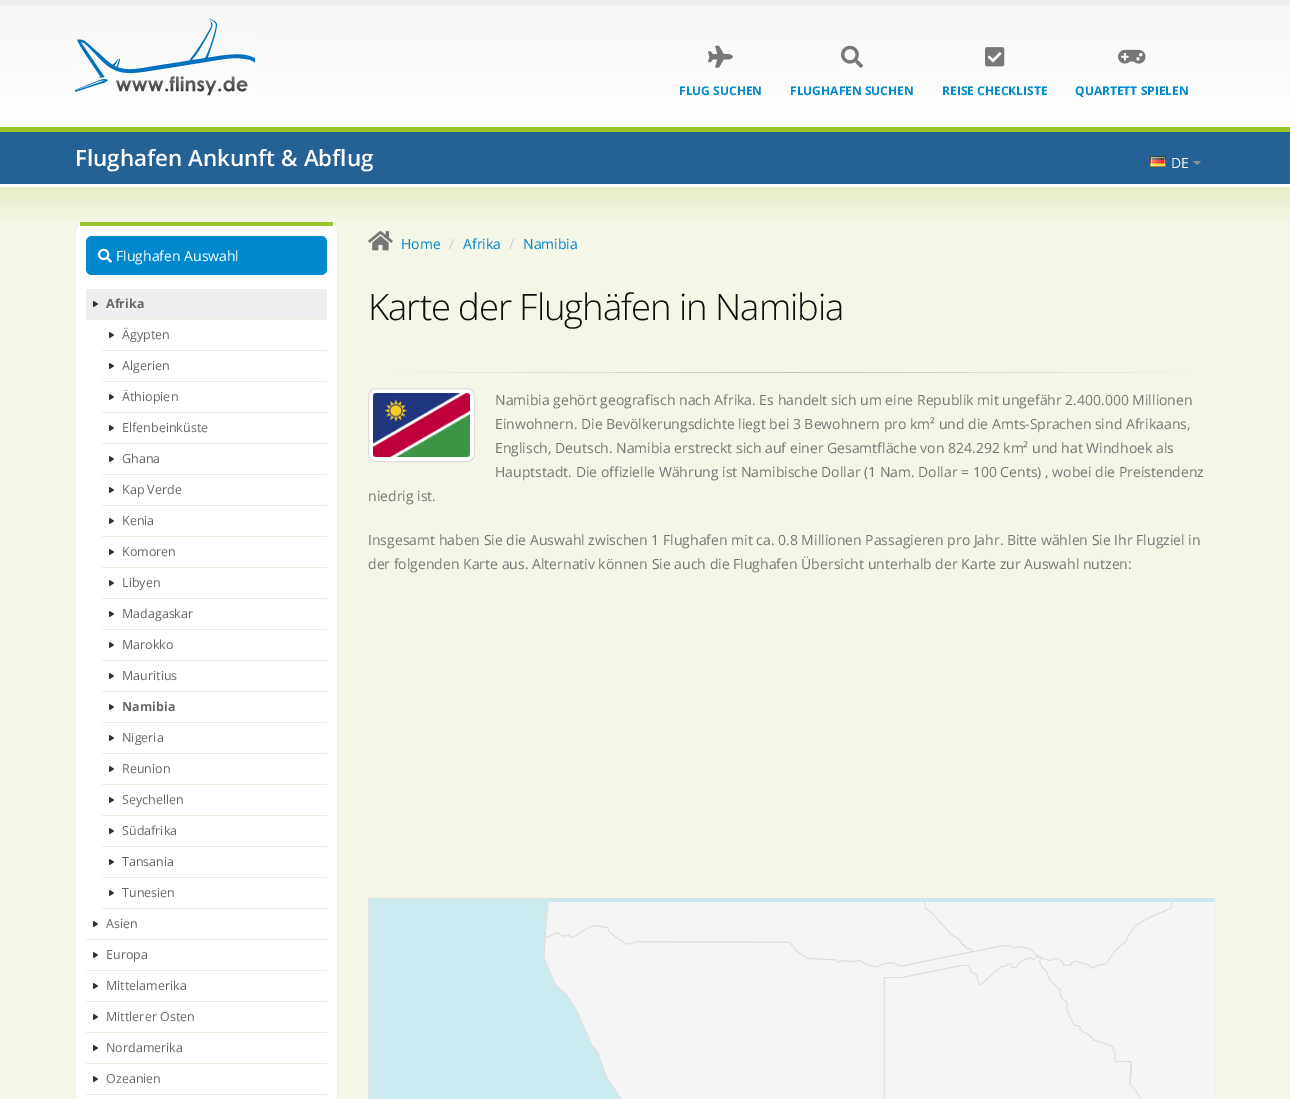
%!PS-Adobe-3.0
%%BoundingBox: 0 0 1290 1099
%%LanguageLevel: 3
%%Pages: 1
%%EndComments
%%BeginProlog
/setink { dup -16 bitshift 255 div exch dup -8 bitshift 255 and 255 div exch 255 and 255 div setrgbcolor } def
/usefont { [ exch dup neg 0 0 3 -1 roll 0 0 ] selectfont } def
/rrect { 5 dict begin { /r /h /w /y /x } { exch def } forall
  x r add y moveto x w add y 2 copy h add r arct x w add y h add x 1 index r arct
  x y h add x y r arct x y 2 copy exch w add exch r arct closepath end } def
/drawimage { 5 dict begin { /h /w /y /x /name } { exch def } forall
  gsave x y translate w h scale
  w h 8 [w 0 0 h 0 0] name (r) file false 3 colorimage grestore end } def
%%EndProlog
%%BeginSetup
<< /PageSize [1290 1099] >> setpagedevice
%%EndSetup
%%Page: 1 1
0 1099 translate 1 -1 scale
4 setmiterlimit
16#F4F7E7 setink
0 0 1290 1099 rectfill
gsave 0 5 moveto 1290 5 lineto 1290 127 lineto 0 127 lineto closepath clip newpath
<< /ShadingType 2 /ColorSpace /DeviceRGB /Coords [645 5 645 127] /Extend [true true] /Function << /FunctionType 2 /Domain [0 1] /C0 [0.965 0.965 0.965] /C1 [1 1 1] /N 1 >> >> shfill grestore
16#EDEDED setink
0 0 1290 5 rectfill
(img1.raw) 75 18 180 78 drawimage
(img2.raw) 708 45 25 23 drawimage
/OpenSans-Bold 12 usefont
16#0088CC setink
679 95 moveto (FLUG SUCHEN) show
(img3.raw) 841 45 22 23 drawimage
790 95 moveto (FLUGHAFEN SUCHEN) show
(img4.raw) 985 47 20 20 drawimage
942 95 moveto (REISE CHECKLISTE) show
(img5.raw) 1118 49 28 15 drawimage
1075 95 moveto (QUARTETT SPIELEN) show
(img6.raw) 0 187 1290 33 drawimage
[
    [0 132 1290 52 16#246194]
    [0 127 1290 5 16#98C72B]
    [0 184 1290 3 16#FFFFFF]
] { aload pop setink rectfill } forall
/OpenSans-SemiBold 22.4 usefont
75 166 moveto (Flughafen Ankunft & Abflug) show
(img7.raw) 1193 161 8 4 drawimage
(img8.raw) 1150 156 16 11 drawimage
/OpenSans-Regular 14 usefont
1171 168 moveto (DE) show
75 222 263 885 8 rrect fill
16#ECECEC setink
338 230 moveto 338 226 334 222 330 222 curveto 334 222 337 226 337 230 curveto 337 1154 lineto 337 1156 336 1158 335 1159 curveto 336 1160 lineto 337 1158 338 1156 338 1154 curveto closepath fill
75 230 moveto 75 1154 lineto 75 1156 76 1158 78 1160 curveto 78 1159 lineto 77 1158 76 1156 76 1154 curveto 76 230 lineto 76 226 79 222 83 222 curveto 79 222 75 226 75 230 curveto closepath fill
16#98C72B setink
80 222 253 4 rectfill
16#0088CC setink
86 236 241 39 6 rrect fill
(img9.raw) 98 248 14 15 drawimage
16#FFFFFF setink
116 261 moveto (Flughafen Auswahl) show
16#EEEEEE setink
86 289 241 30 rectfill
(img10.raw) 93 301 5 6 drawimage
16#EDEDDE setink
86 319 241 1 rectfill
/OpenSans-Bold 12.5 usefont
16#666666 setink
106 308 moveto (Afrika) show
(img11.raw) 109 332 5 6 drawimage
16#EDEDDE setink
102 350 225 1 rectfill
/OpenSans-Regular 12.5 usefont
16#666666 setink
122 339 moveto (Ägypten) show
(img11.raw) 109 363 5 6 drawimage
16#EDEDDE setink
102 381 225 1 rectfill
16#666666 setink
122 370 moveto (Algerien) show
(img11.raw) 109 394 5 6 drawimage
16#EDEDDE setink
102 412 225 1 rectfill
16#666666 setink
122 401 moveto (Äthiopien) show
(img11.raw) 109 425 5 6 drawimage
16#EDEDDE setink
102 443 225 1 rectfill
16#666666 setink
122 432 moveto (Elfenbeinküste) show
(img11.raw) 109 456 5 6 drawimage
16#EDEDDE setink
102 474 225 1 rectfill
16#666666 setink
122 463 moveto (Ghana) show
(img11.raw) 109 487 5 6 drawimage
16#EDEDDE setink
102 505 225 1 rectfill
16#666666 setink
122 494 moveto (Kap Verde) show
(img11.raw) 109 518 5 6 drawimage
16#EDEDDE setink
102 536 225 1 rectfill
16#666666 setink
122 525 moveto (Kenia) show
(img11.raw) 109 549 5 6 drawimage
16#EDEDDE setink
102 567 225 1 rectfill
16#666666 setink
122 556 moveto (Komoren) show
(img11.raw) 109 580 5 6 drawimage
16#EDEDDE setink
102 598 225 1 rectfill
16#666666 setink
122 587 moveto (Libyen) show
(img11.raw) 109 611 5 6 drawimage
16#EDEDDE setink
102 629 225 1 rectfill
16#666666 setink
122 618 moveto (Madagaskar) show
(img11.raw) 109 642 5 6 drawimage
16#EDEDDE setink
102 660 225 1 rectfill
16#666666 setink
122 649 moveto (Marokko) show
(img11.raw) 109 673 5 6 drawimage
16#EDEDDE setink
102 691 225 1 rectfill
16#666666 setink
122 680 moveto (Mauritius) show
(img11.raw) 109 704 5 6 drawimage
16#EDEDDE setink
102 722 225 1 rectfill
/OpenSans-Bold 12.5 usefont
16#666666 setink
122 711 moveto (Namibia) show
(img11.raw) 109 735 5 6 drawimage
16#EDEDDE setink
102 753 225 1 rectfill
/OpenSans-Regular 12.5 usefont
16#666666 setink
122 742 moveto (Nigeria) show
(img11.raw) 109 766 5 6 drawimage
16#EDEDDE setink
102 784 225 1 rectfill
16#666666 setink
122 773 moveto (Reunion) show
(img11.raw) 109 797 5 6 drawimage
16#EDEDDE setink
102 815 225 1 rectfill
16#666666 setink
122 804 moveto (Seychellen) show
(img11.raw) 109 828 5 6 drawimage
16#EDEDDE setink
102 846 225 1 rectfill
16#666666 setink
122 835 moveto (Südafrika) show
(img11.raw) 109 859 5 6 drawimage
16#EDEDDE setink
102 877 225 1 rectfill
16#666666 setink
122 866 moveto (Tansania) show
(img11.raw) 109 890 5 6 drawimage
16#EDEDDE setink
102 908 225 1 rectfill
16#666666 setink
122 897 moveto (Tunesien) show
(img11.raw) 93 921 5 6 drawimage
16#EDEDDE setink
86 939 241 1 rectfill
16#666666 setink
106 928 moveto (Asien) show
(img11.raw) 93 952 5 6 drawimage
16#EDEDDE setink
86 970 241 1 rectfill
16#666666 setink
106 959 moveto (Europa) show
(img11.raw) 93 983 5 6 drawimage
16#EDEDDE setink
86 1001 241 1 rectfill
16#666666 setink
106 990 moveto (Mittelamerika) show
(img11.raw) 93 1014 5 6 drawimage
16#EDEDDE setink
86 1032 241 1 rectfill
16#666666 setink
106 1021 moveto (Mittlerer Osten) show
(img11.raw) 93 1045 5 6 drawimage
16#EDEDDE setink
86 1063 241 1 rectfill
16#666666 setink
106 1052 moveto (Nordamerika) show
(img11.raw) 93 1076 5 6 drawimage
16#EDEDDE setink
86 1094 241 1 rectfill
16#666666 setink
106 1083 moveto (Ozeanien) show
(img12.raw) 368 231 25 20 drawimage
/OpenSans-Regular 14 usefont
16#0088CC setink
401 249 moveto (Home) show
16#CCCCCC setink
449 249 moveto (/) show
16#0088CC setink
463 249 moveto (Afrika) show
16#CCCCCC setink
509 249 moveto (/) show
16#0088CC setink
523 249 moveto (Namibia) show
/OpenSans-Light 36.4 usefont
16#0E0E0E setink
368 320 moveto -1 0 (Karte der Flughäfen in Namibia) ashow
gsave 390 372 moveto 1193 372 lineto 1193 373 lineto 390 373 lineto closepath clip newpath
<< /ShadingType 2 /ColorSpace /DeviceRGB /Coords [368 373 1215 373] /Extend [true true] /Function << /FunctionType 3 /Domain [0 1] /Functions [<< /FunctionType 2 /Domain [0 1] /C0 [0.957 0.969 0.906] /C1 [0.765 0.776 0.725] /N 1 >> << /FunctionType 2 /Domain [0 1] /C0 [0.765 0.776 0.725] /C1 [0.957 0.969 0.906] /N 1 >>] /Bounds [0.5] /Encode [0 1 0 1] >> >> shfill grestore
16#FFFFFF setink
368.5 388.5 106 73 7.5 rrect gsave fill grestore
16#DDDDDD setink
stroke
(img13.raw) 373 393 97 64 drawimage
/OpenSans-Regular 14 usefont
16#777777 setink
[
    [(Namibia gehört geografisch nach Afrika. Es handelt sich um eine Republik mit ungefähr 2.400.000 Millionen) 495 405]
    [(Einwohnern. Die Bevölkerungsdichte liegt bei 3 Bewohnern pro km² und die Amts-Sprachen sind Afrikaans,) 495 429]
    [(Englisch, Deutsch. Namibia erstreckt sich auf einer Gesamtfläche von 824.292 km² und hat Windhoek als) 495 453]
    [(Hauptstadt. Die offizielle Währung ist Namibische Dollar \(1 Nam. Dollar = 100 Cents\) , wobei die Preistendenz) 495 477]
    [(niedrig ist.) 368 501]
    [(Insgesamt haben Sie die Auswahl zwischen 1 Flughafen mit ca. 0.8 Millionen Passagieren pro Jahr. Bitte wählen Sie Ihr Flugziel in) 368 545]
    [(der folgenden Karte aus. Alternativ können Sie auch die Flughafen Übersicht unterhalb der Karte zur Auswahl nutzen:) 368 569]
] { aload pop moveto show } forall
16#DFDFDF setink
368.5 898.5 846 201 rectstroke
(img14.raw) 369 899 846 200 drawimage
showpage
%%EOF
